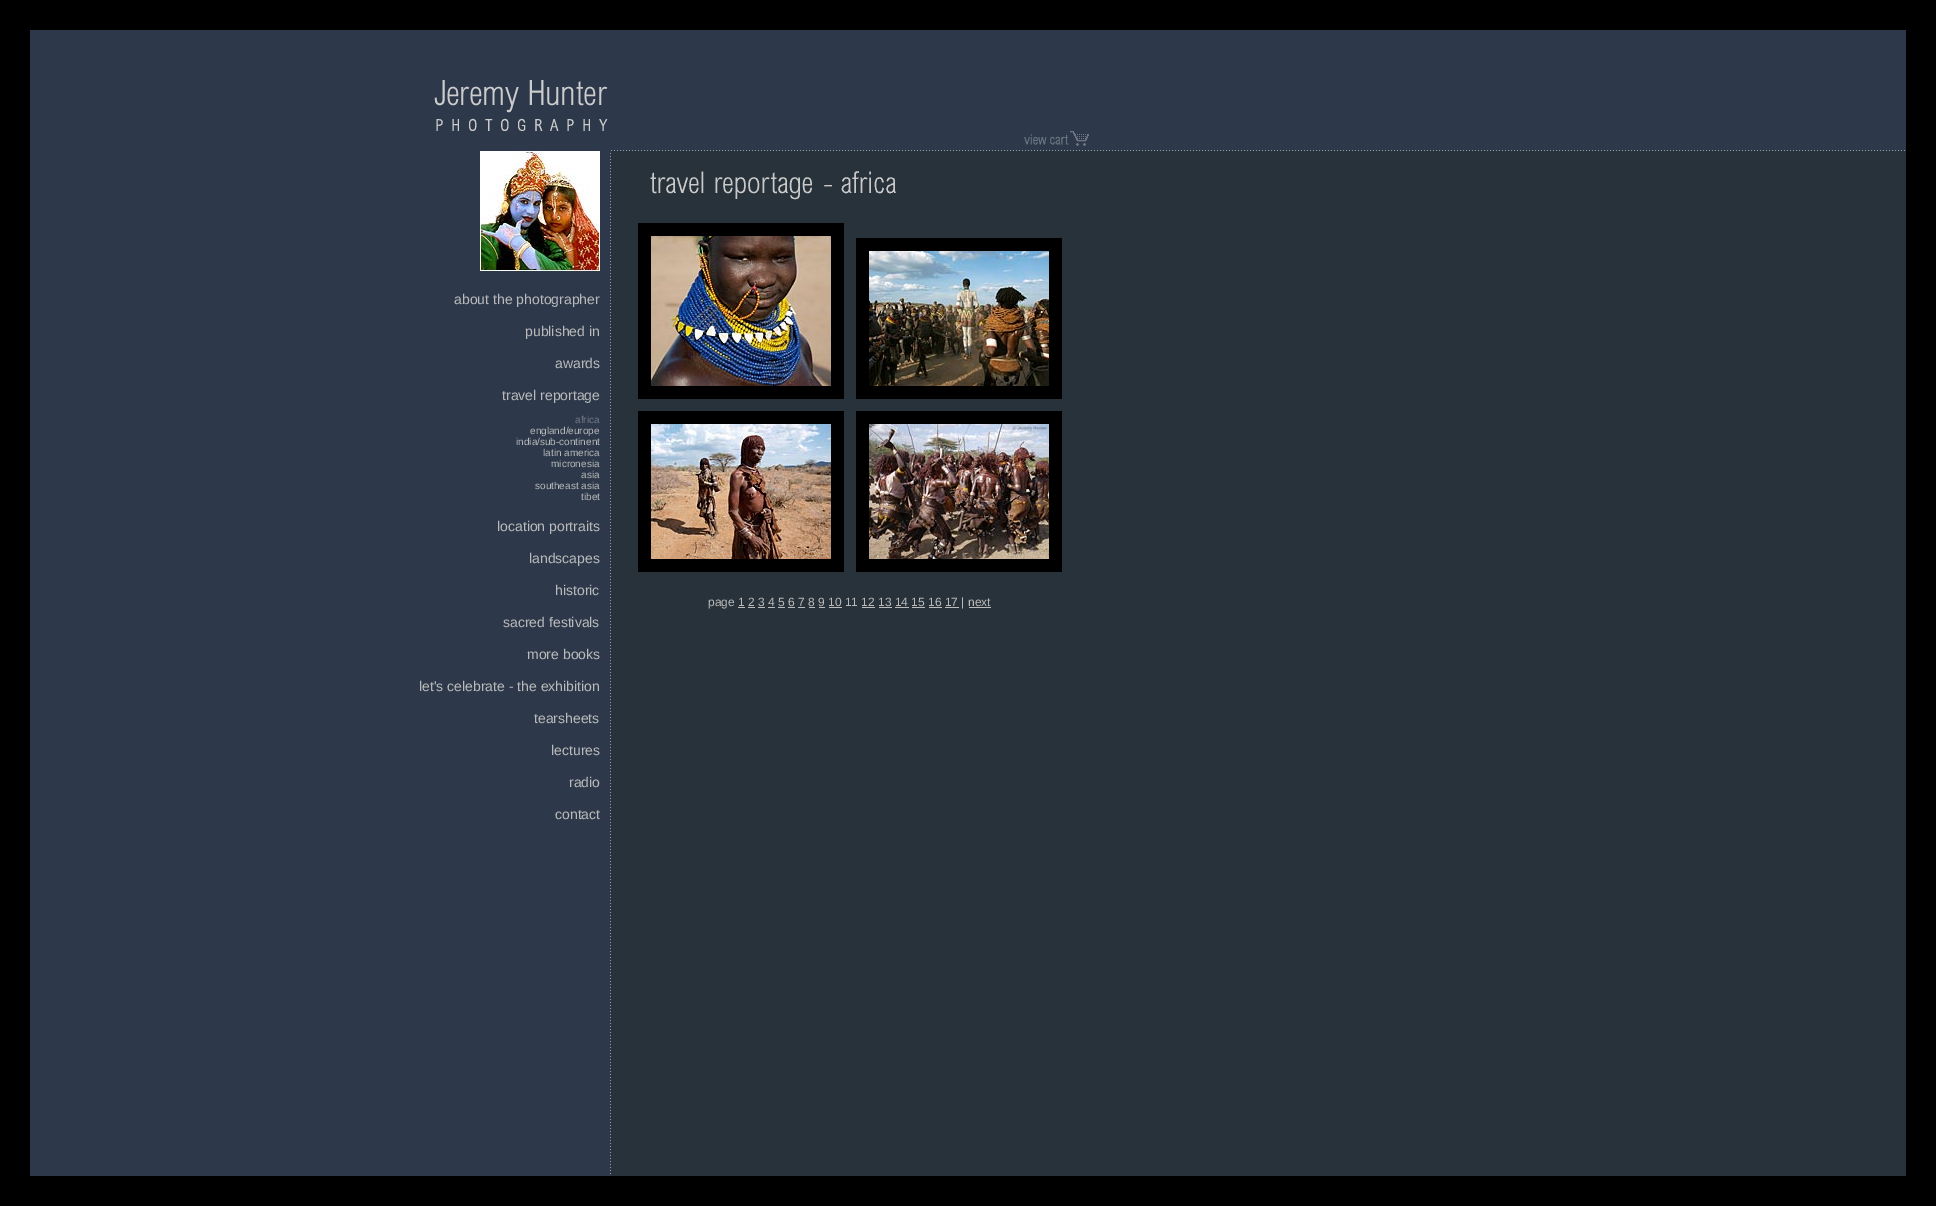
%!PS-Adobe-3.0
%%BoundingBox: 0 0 1936 1206
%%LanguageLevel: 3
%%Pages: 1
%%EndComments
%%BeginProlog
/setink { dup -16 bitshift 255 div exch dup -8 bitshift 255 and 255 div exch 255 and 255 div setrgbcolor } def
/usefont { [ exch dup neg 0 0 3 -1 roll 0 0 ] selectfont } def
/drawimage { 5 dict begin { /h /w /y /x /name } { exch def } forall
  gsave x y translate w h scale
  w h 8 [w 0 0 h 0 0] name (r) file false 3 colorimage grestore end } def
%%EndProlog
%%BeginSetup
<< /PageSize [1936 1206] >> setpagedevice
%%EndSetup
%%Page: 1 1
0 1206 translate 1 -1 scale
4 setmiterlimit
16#000000 setink
0 0 1936 1206 rectfill
16#2D394A setink
30 30 1876 120 rectfill
(img1.raw) 434 80 174 51 drawimage
(img2.raw) 1024 131 65 15 drawimage
30 150 1876 1 rectfill
(img3.raw) 611 150 1294 1 drawimage
30 151 580 1025 rectfill
(img4.raw) 480 151 120 120 drawimage
/LiberationSans-Regular 14 usefont
16#BBBBBB setink
[
    [(about the photographer) 454 304]
    [(published in) 525 336]
    [(awards) 555 368]
    [(travel reportage) 502 400]
] { aload pop moveto show } forall
/LiberationSans-Regular 10 usefont
16#747B88 setink
575 423 moveto (africa) show
16#BBBBBB setink
[
    [(england/europe) 530 434]
    [(india/sub-continent) 516 445]
    [(latin america) 543 456]
    [(micronesia) 551 467]
    [(asia) 581 478]
    [(southeast asia) 535 489]
    [(tibet) 581 500]
] { aload pop moveto show } forall
/LiberationSans-Regular 14 usefont
[
    [(location portraits) 497 531]
    [(landscapes) 529 563]
    [(historic) 555 595]
    [(sacred festivals) 503 627]
    [(more books) 527 659]
    [(let's celebrate - the exhibition) 419 691]
    [(tearsheets) 534 723]
    [(lectures) 551 755]
    [(radio) 569 787]
    [(contact) 555 819]
] { aload pop moveto show } forall
16#28323A setink
611 151 1295 1025 rectfill
(img5.raw) 610 151 1 1025 drawimage
(img6.raw) 650 171 162 29 drawimage
(img7.raw) 824 171 72 23 drawimage
16#000000 setink
638 223 206 176 rectfill
(img8.raw) 651 236 180 150 drawimage
856 238 206 161 rectfill
(img9.raw) 869 251 180 135 drawimage
638 411 206 161 rectfill
(img10.raw) 651 424 180 135 drawimage
856 411 206 161 rectfill
(img11.raw) 869 424 180 135 drawimage
/LiberationSans-Regular 12 usefont
16#BBBBBB setink
708 606 moveto (page 1 2 3 4 5 6 7 8 9 10 11 12 13 14 15 16 17 | next) show
[
    [738 607 7 1 16#BBBBBB]
    [748 607 7 1 16#BBBBBB]
    [758 607 7 1 16#BBBBBB]
    [768 607 7 1 16#BBBBBB]
    [778 607 7 1 16#BBBBBB]
    [788 607 7 1 16#BBBBBB]
    [798 607 7 1 16#BBBBBB]
    [809 607 6 1 16#BBBBBB]
    [819 607 6 1 16#BBBBBB]
    [829 607 13 1 16#BBBBBB]
    [862 607 13 1 16#BBBBBB]
    [879 607 13 1 16#BBBBBB]
    [895 607 14 1 16#BBBBBB]
    [912 607 13 1 16#BBBBBB]
    [929 607 13 1 16#BBBBBB]
    [945 607 14 1 16#BBBBBB]
    [969 607 22 1 16#BBBBBB]
] { aload pop setink rectfill } forall
showpage
%%EOF
